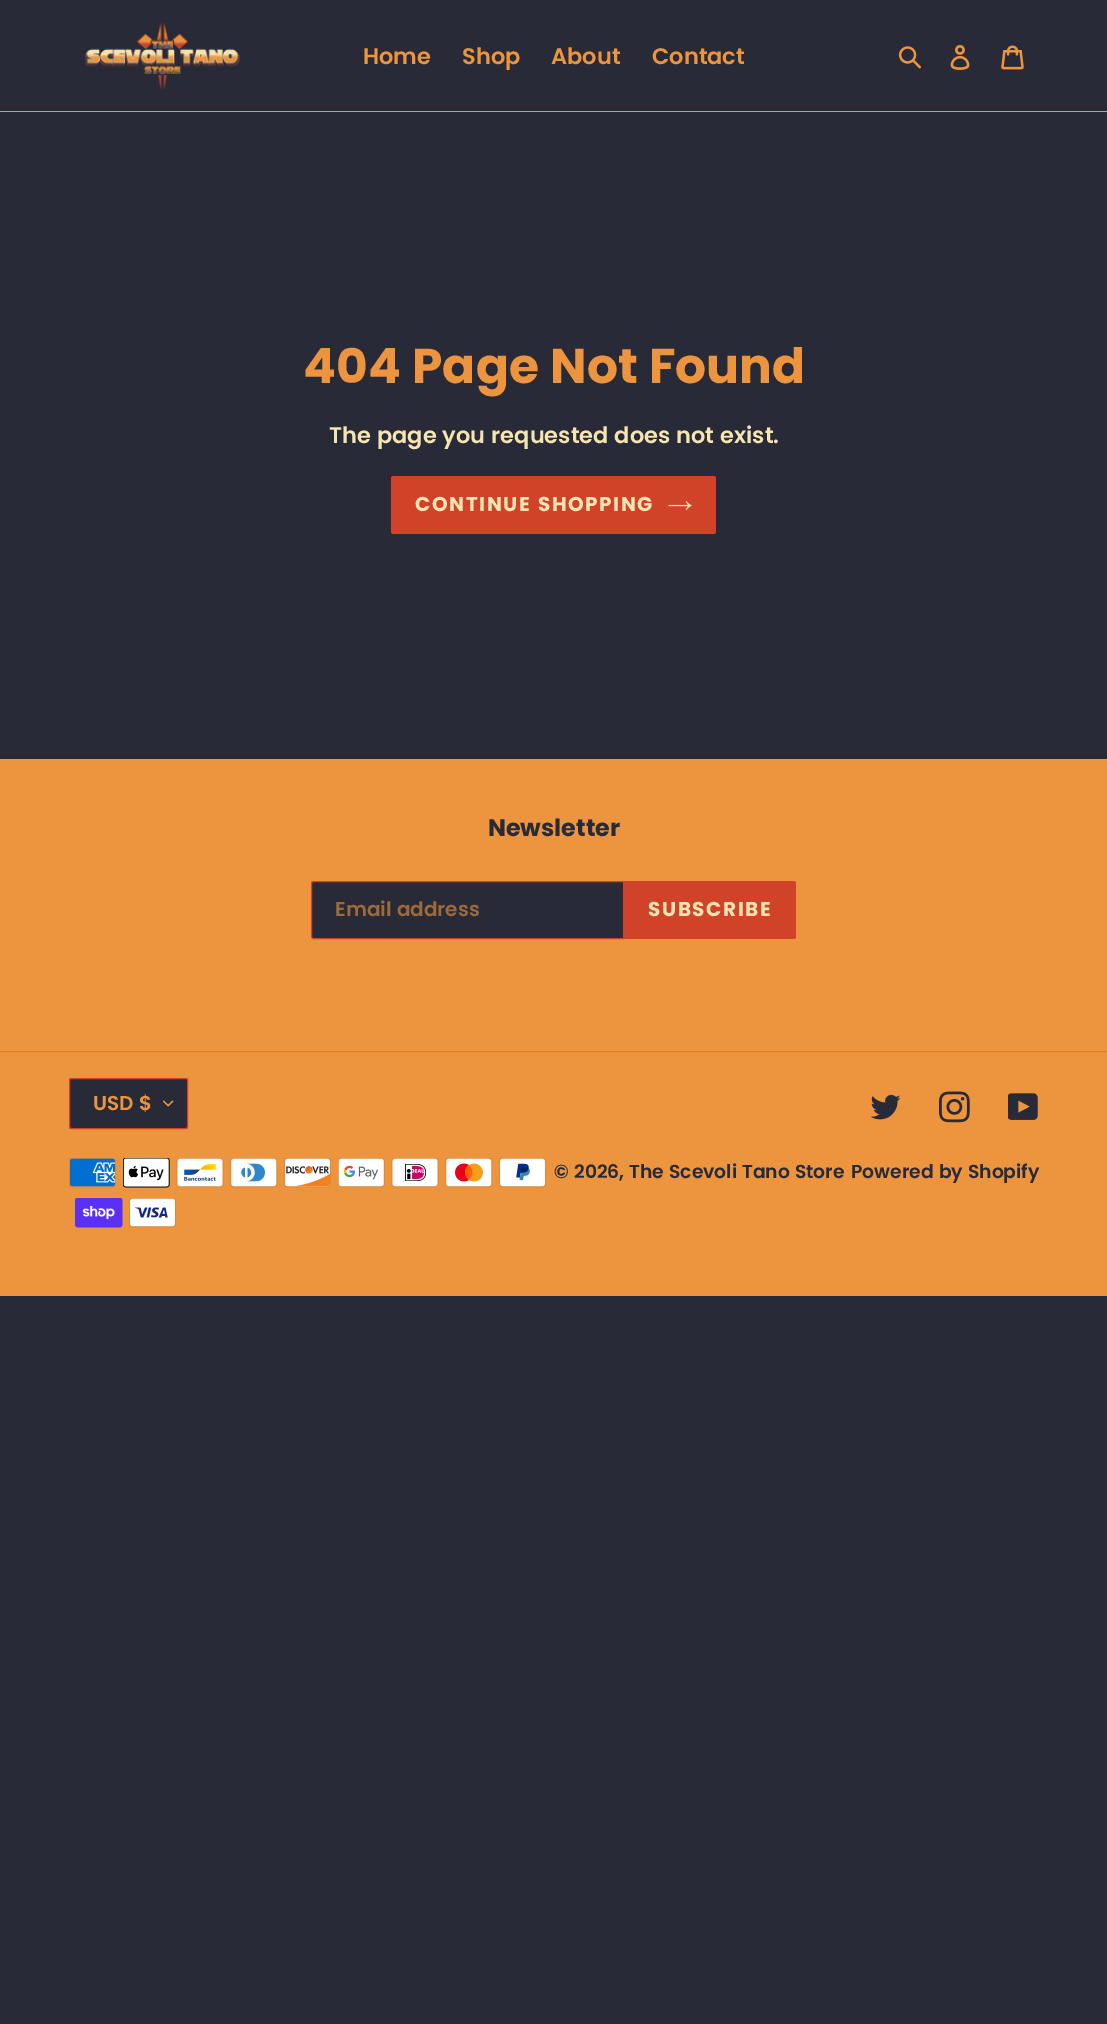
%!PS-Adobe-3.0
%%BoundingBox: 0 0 1107 2024
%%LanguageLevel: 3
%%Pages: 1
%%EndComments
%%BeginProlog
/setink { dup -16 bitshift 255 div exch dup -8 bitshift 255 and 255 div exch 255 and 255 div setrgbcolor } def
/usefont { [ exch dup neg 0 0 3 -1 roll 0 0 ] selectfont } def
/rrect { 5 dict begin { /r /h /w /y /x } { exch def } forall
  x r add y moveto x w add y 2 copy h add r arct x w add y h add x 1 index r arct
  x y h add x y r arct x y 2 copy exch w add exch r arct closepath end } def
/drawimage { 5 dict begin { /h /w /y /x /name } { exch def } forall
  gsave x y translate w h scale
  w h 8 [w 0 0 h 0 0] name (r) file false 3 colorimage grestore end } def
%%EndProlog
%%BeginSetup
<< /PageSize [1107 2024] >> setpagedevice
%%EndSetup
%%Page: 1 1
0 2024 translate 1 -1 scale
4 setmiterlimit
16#282A37 setink
0 0 1107 2024 rectfill
16#ED953E setink
0 111 1107 1 rectfill
(img1.raw) 84 22 156 68 drawimage
/Poppins-SemiBold 22.5 usefont
[
    [(Home) 363 64]
    [(Shop) 462 64]
    [(About) 551 64]
    [(Contact) 652 64]
] { aload pop moveto show } forall
(img2.raw) 898 46 23 23 drawimage
(img3.raw) 950 45 20 25 drawimage
(img4.raw) 1001 45 23 25 drawimage
/Poppins-Bold 48.75 usefont
303 383 moveto (404 Page Not Found) show
/Poppins-SemiBold 22.5 usefont
16#F5E5B2 setink
329 443 moveto (The page you requested does not exist.) show
16#D14329 setink
391 476 325 58 2.5 rrect fill
/Poppins-Bold 20 usefont
16#F5E5B2 setink
415 511 moveto 1.6 0 (CONTINUE SHOPPING) ashow
(img5.raw) 668 501 24 9 drawimage
16#ED953E setink
0 759 1107 537 rectfill
/Poppins-Bold 23.75 usefont
16#282A37 setink
488 836 moveto (Newsletter) show
313.5 881.5 moveto 623.5 881.5 lineto 623.5 938.5 lineto 313.5 938.5 lineto 312.5 938.5 311.5 937.5 311.5 936.5 curveto 311.5 883.5 lineto 311.5 882.5 312.5 881.5 313.5 881.5 curveto closepath gsave fill grestore
16#D14329 setink
stroke
/Poppins-SemiBold 20 usefont
16#9E6A3B setink
335 916 moveto (Email address) show
16#D14329 setink
624 881 moveto 793.5 881 lineto 795 881 796 882 796 883.5 curveto 796 936.5 lineto 796 938 795 939 793.5 939 curveto 624 939 lineto closepath fill
/Poppins-Bold 20 usefont
16#F5E5B2 setink
648 916 moveto 1.6 0 (SUBSCRIBE) ashow
16#E37B15 setink
0 1051 1107 1 rectfill
16#282A37 setink
69 1078 119 51 2.5 rrect fill
(img6.raw) 163 1100 11 7 drawimage
16#D14329 setink
69.5 1078.5 118 50 2 rrect stroke
/Poppins-SemiBold 20 usefont
16#ED953E setink
93 1110 moveto (USD $) show
(img7.raw) 870 1094 31 26 drawimage
(img8.raw) 939 1091 31 32 drawimage
(img9.raw) 1008 1093 30 27 drawimage
(img10.raw) 69 1158 47 30 drawimage
(img11.raw) 123 1158 47 30 drawimage
(img12.raw) 176 1158 48 30 drawimage
(img13.raw) 230 1158 48 30 drawimage
(img14.raw) 284 1158 47 30 drawimage
(img15.raw) 338 1158 47 30 drawimage
(img16.raw) 391 1158 48 30 drawimage
(img17.raw) 445 1158 48 30 drawimage
(img18.raw) 499 1158 47 30 drawimage
(img19.raw) 75 1198 48 30 drawimage
(img20.raw) 129 1198 47 30 drawimage
/Poppins-SemiBold 18.75 usefont
16#282A37 setink
554 1178 moveto (© 2026, The Scevoli Tano Store) show
851 1178 moveto (Powered by Shopify) show
showpage
%%EOF
